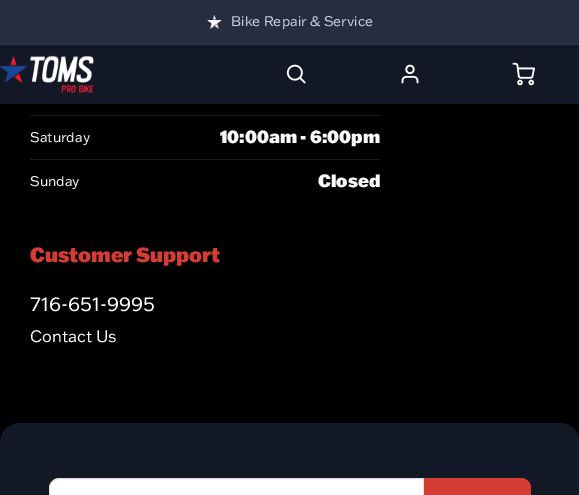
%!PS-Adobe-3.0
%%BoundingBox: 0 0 579 495
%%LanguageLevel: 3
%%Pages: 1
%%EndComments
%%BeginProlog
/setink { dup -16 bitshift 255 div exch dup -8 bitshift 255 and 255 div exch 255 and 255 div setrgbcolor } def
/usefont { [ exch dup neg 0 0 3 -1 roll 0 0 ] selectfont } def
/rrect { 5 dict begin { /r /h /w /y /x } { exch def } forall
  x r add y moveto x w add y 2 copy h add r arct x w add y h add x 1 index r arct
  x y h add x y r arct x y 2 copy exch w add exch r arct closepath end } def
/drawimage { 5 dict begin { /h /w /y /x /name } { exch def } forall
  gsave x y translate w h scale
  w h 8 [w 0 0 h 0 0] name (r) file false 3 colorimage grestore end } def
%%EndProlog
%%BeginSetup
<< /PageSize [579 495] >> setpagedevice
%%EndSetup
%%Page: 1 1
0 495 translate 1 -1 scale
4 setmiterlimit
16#000000 setink
0 0 579 495 rectfill
16#262D41 setink
0 0 579 44 rectfill
16#2F364C setink
0 44 579 1 rectfill
(img1.raw) 207 15 15 14 drawimage
/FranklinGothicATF-Regular 13.75 usefont
16#CDD2E6 setink
231 26 moveto (Bike Repair & Service) show
16#131826 setink
0 45 579 59 rectfill
(img2.raw) 0 55 94 38 drawimage
(img3.raw) 286 64 20 20 drawimage
(img4.raw) 401 64 18 20 drawimage
(img5.raw) 512 62 23 24 drawimage
16#1D1D1D setink
30 115 350 1 rectfill
16#FAFAFA setink
30 142 moveto (Saturday) show
/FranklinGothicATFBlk-Black 17.5 usefont
220 143 moveto (10:00am - 6:00pm) show
16#1D1D1D setink
30 159 350 1 rectfill
/FranklinGothicATF-Regular 13.75 usefont
16#FAFAFA setink
30 186 moveto (Sunday) show
/FranklinGothicATFBlk-Black 17.5 usefont
318 187 moveto (Closed) show
/FranklinGothicATFBlk-Black 20 usefont
16#D43D34 setink
30 262 moveto (Customer Support) show
/FranklinGothicATF-Regular 20 usefont
16#FAFAFA setink
30 311 moveto (716-651-9995) show
/FranklinGothicATF-Regular 16.25 usefont
30 342 moveto (Contact Us) show
16#131826 setink
0 423 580 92 20 rrect fill
16#FFFFFF setink
59 478.5 moveto 423.5 478.5 lineto 423.5 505.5 lineto 59 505.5 lineto 54 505.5 49.5 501 49.5 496 curveto 49.5 488 lineto 49.5 483 54 478.5 59 478.5 curveto closepath gsave fill grestore
16#DFDFDF setink
stroke
16#D43D34 setink
424 478 moveto 521 478 lineto 526.5 478 531 482.5 531 488 curveto 531 495 lineto 531 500.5 526.5 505 521 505 curveto 424 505 lineto closepath fill
showpage
%%EOF
